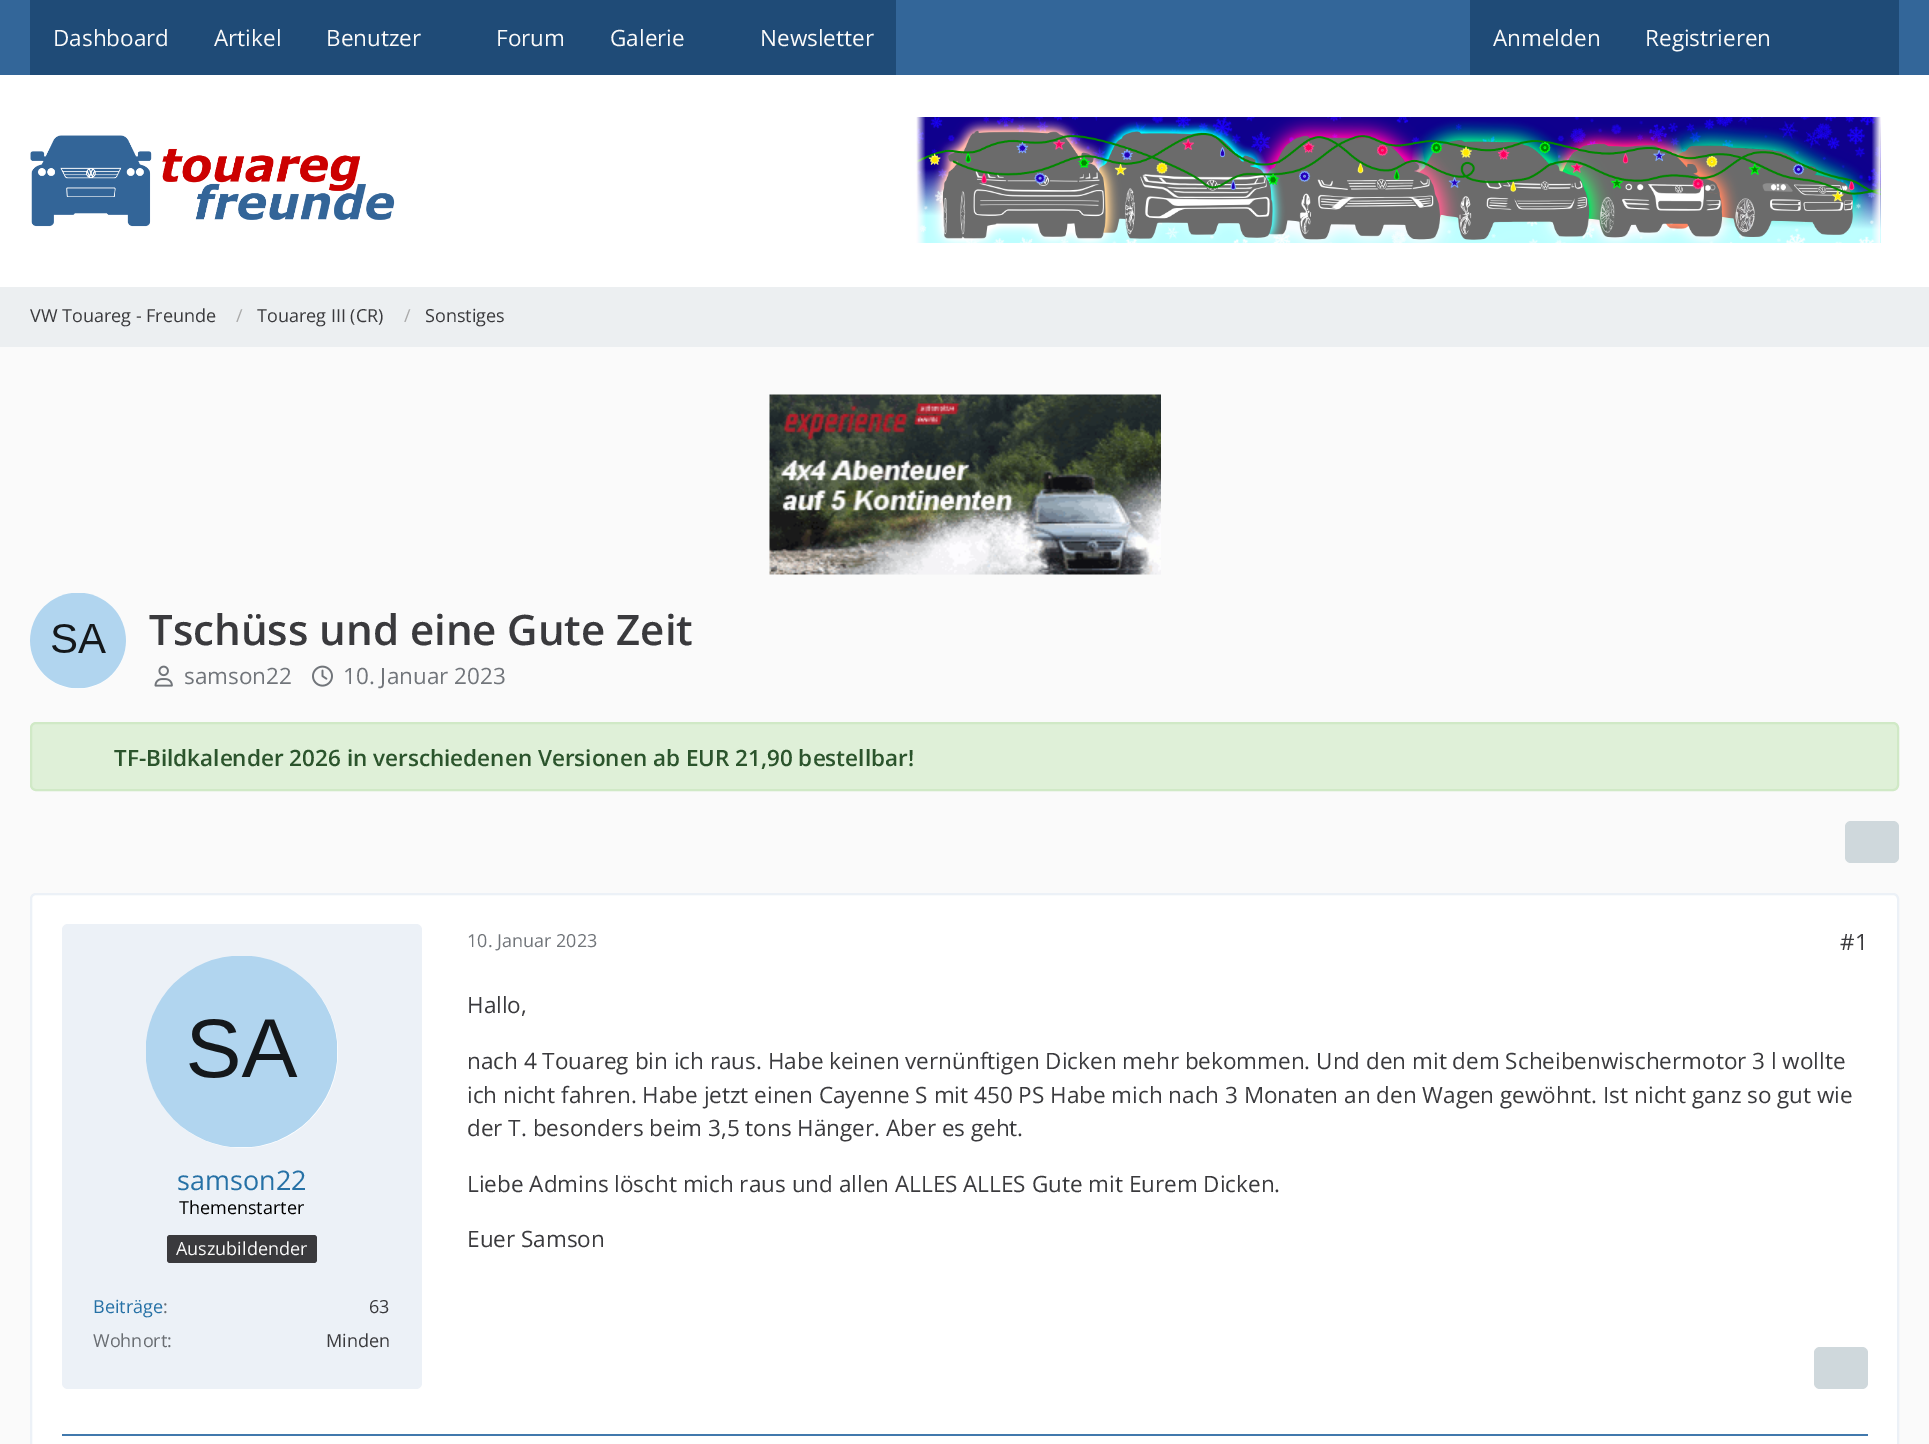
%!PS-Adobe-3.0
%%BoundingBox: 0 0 1929 1444
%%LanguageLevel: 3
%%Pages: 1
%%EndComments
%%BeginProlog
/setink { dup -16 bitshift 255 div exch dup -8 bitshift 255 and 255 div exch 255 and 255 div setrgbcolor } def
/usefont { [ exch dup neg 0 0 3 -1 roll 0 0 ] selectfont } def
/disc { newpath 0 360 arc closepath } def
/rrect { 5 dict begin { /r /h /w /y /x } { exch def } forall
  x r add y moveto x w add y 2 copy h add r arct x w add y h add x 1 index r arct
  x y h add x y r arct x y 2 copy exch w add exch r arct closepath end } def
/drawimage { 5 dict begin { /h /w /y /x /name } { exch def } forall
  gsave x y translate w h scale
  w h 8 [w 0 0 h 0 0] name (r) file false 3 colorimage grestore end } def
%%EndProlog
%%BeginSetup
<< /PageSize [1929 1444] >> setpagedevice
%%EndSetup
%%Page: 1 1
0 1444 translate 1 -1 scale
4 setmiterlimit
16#FAFAFA setink
0 0 1929 1444 rectfill
[
    [0 75 1929 212 16#FFFFFF]
    [0 0 1929 75 16#336699]
    [30 0 866 75 16#1F4B77]
] { aload pop setink rectfill } forall
/OpenSans-Regular 22.5 usefont
16#FAFAFA setink
[
    [(Dashboard) 53 46]
    [(Artikel) 214 46]
    [(Benutzer) 326 46]
    [(Forum) 496 46]
    [(Galerie) 610 46]
    [(Newsletter) 760 46]
] { aload pop moveto show } forall
16#1F4B77 setink
1470 0 429 75 rectfill
16#FAFAFA setink
1493 46 moveto (Anmelden) show
1645 46 moveto (Registrieren) show
(img1.raw) 916 117 965 126 drawimage
(img2.raw) 30 135 365 92 drawimage
16#ECEFF1 setink
0 287 1929 60 rectfill
/OpenSans-Regular 18 usefont
16#3A3A3D setink
30 322 moveto (VW Touareg - Freunde) show
16#AAAAAA setink
236 322 moveto (/) show
16#3A3A3D setink
257 322 moveto (Touareg III \(CR\)) show
16#AAAAAA setink
404 322 moveto (/) show
16#3A3A3D setink
425 322 moveto (Sonstiges) show
(img3.raw) 769 394 392 181 drawimage
16#FFFFFF setink
78 641 48 disc fill
(img4.raw) 30 593 96 96 drawimage
/OpenSans-SemiBold 42 usefont
16#3A3A3D setink
149 645 moveto (Tschüss und eine Gute Zeit) show
(img5.raw) 154 665 19 22 drawimage
/OpenSans-Regular 22.5 usefont
16#71757A setink
184 684 moveto (samson22) show
(img6.raw) 312 665 21 22 drawimage
343 684 moveto (10. Januar 2023) show
16#DFF0D8 setink
31 723 1867 67 5 rrect gsave fill grestore
16#D0E9C6 setink
2 setlinewidth
stroke
/OpenSans-SemiBold 22.5 usefont
16#2B542C setink
114 766 moveto (TF-Bildkalender 2026 in verschiedenen Versionen ab EUR 21,90 bestellbar!) show
16#CFD8DC setink
1845 821 54 42 6 rrect fill
16#FFFFFF setink
31 894 1867 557 5 rrect gsave fill grestore
16#ECF1F7 setink
stroke
16#4179AD setink
62 1434 1806 2 rectfill
16#ECF1F7 setink
62 924 360 465 6 rrect fill
16#FFFFFF setink
242 1052 96 disc fill
(img7.raw) 146 956 192 192 drawimage
/OpenSans-Regular 27 usefont
16#2671A6 setink
177 1190 moveto (samson22) show
/OpenSans-Regular 18 usefont
16#000000 setink
179 1214 moveto (Themenstarter) show
16#3A3A3D setink
167 1235 150 28 3 rrect fill
16#FAFAFA setink
176 1255 moveto (Auszubildender) show
16#2671A6 setink
93 1313 moveto (Beiträge) show
16#696D72 setink
163 1313 moveto (:) show
16#3A3A3D setink
369 1313 moveto (63) show
16#696D72 setink
93 1347 moveto (Wohnort:) show
16#3A3A3D setink
326 1347 moveto (Minden) show
16#71757A setink
467 947 moveto (10. Januar 2023) show
/OpenSans-Regular 22.5 usefont
16#3A3A3D setink
[
    [(#1) 1840 950]
    [(Hallo,) 467 1013]
    [(nach 4 Touareg bin ich raus. Habe keinen vernünftigen Dicken mehr bekommen. Und den mit dem Scheibenwischermotor 3 l wollte) 467 1069]
    [(ich nicht fahren. Habe jetzt einen Cayenne S mit 450 PS Habe mich nach 3 Monaten an den Wagen gewöhnt. Ist nicht ganz so gut wie) 467 1103]
    [(der T. besonders beim 3,5 tons Hänger. Aber es geht.) 467 1136]
    [(Liebe Admins löscht mich raus und allen ALLES ALLES Gute mit Eurem Dicken.) 467 1192]
    [(Euer Samson) 467 1247]
] { aload pop moveto show } forall
16#CFD8DC setink
1814 1347 54 42 6 rrect fill
showpage
%%EOF
